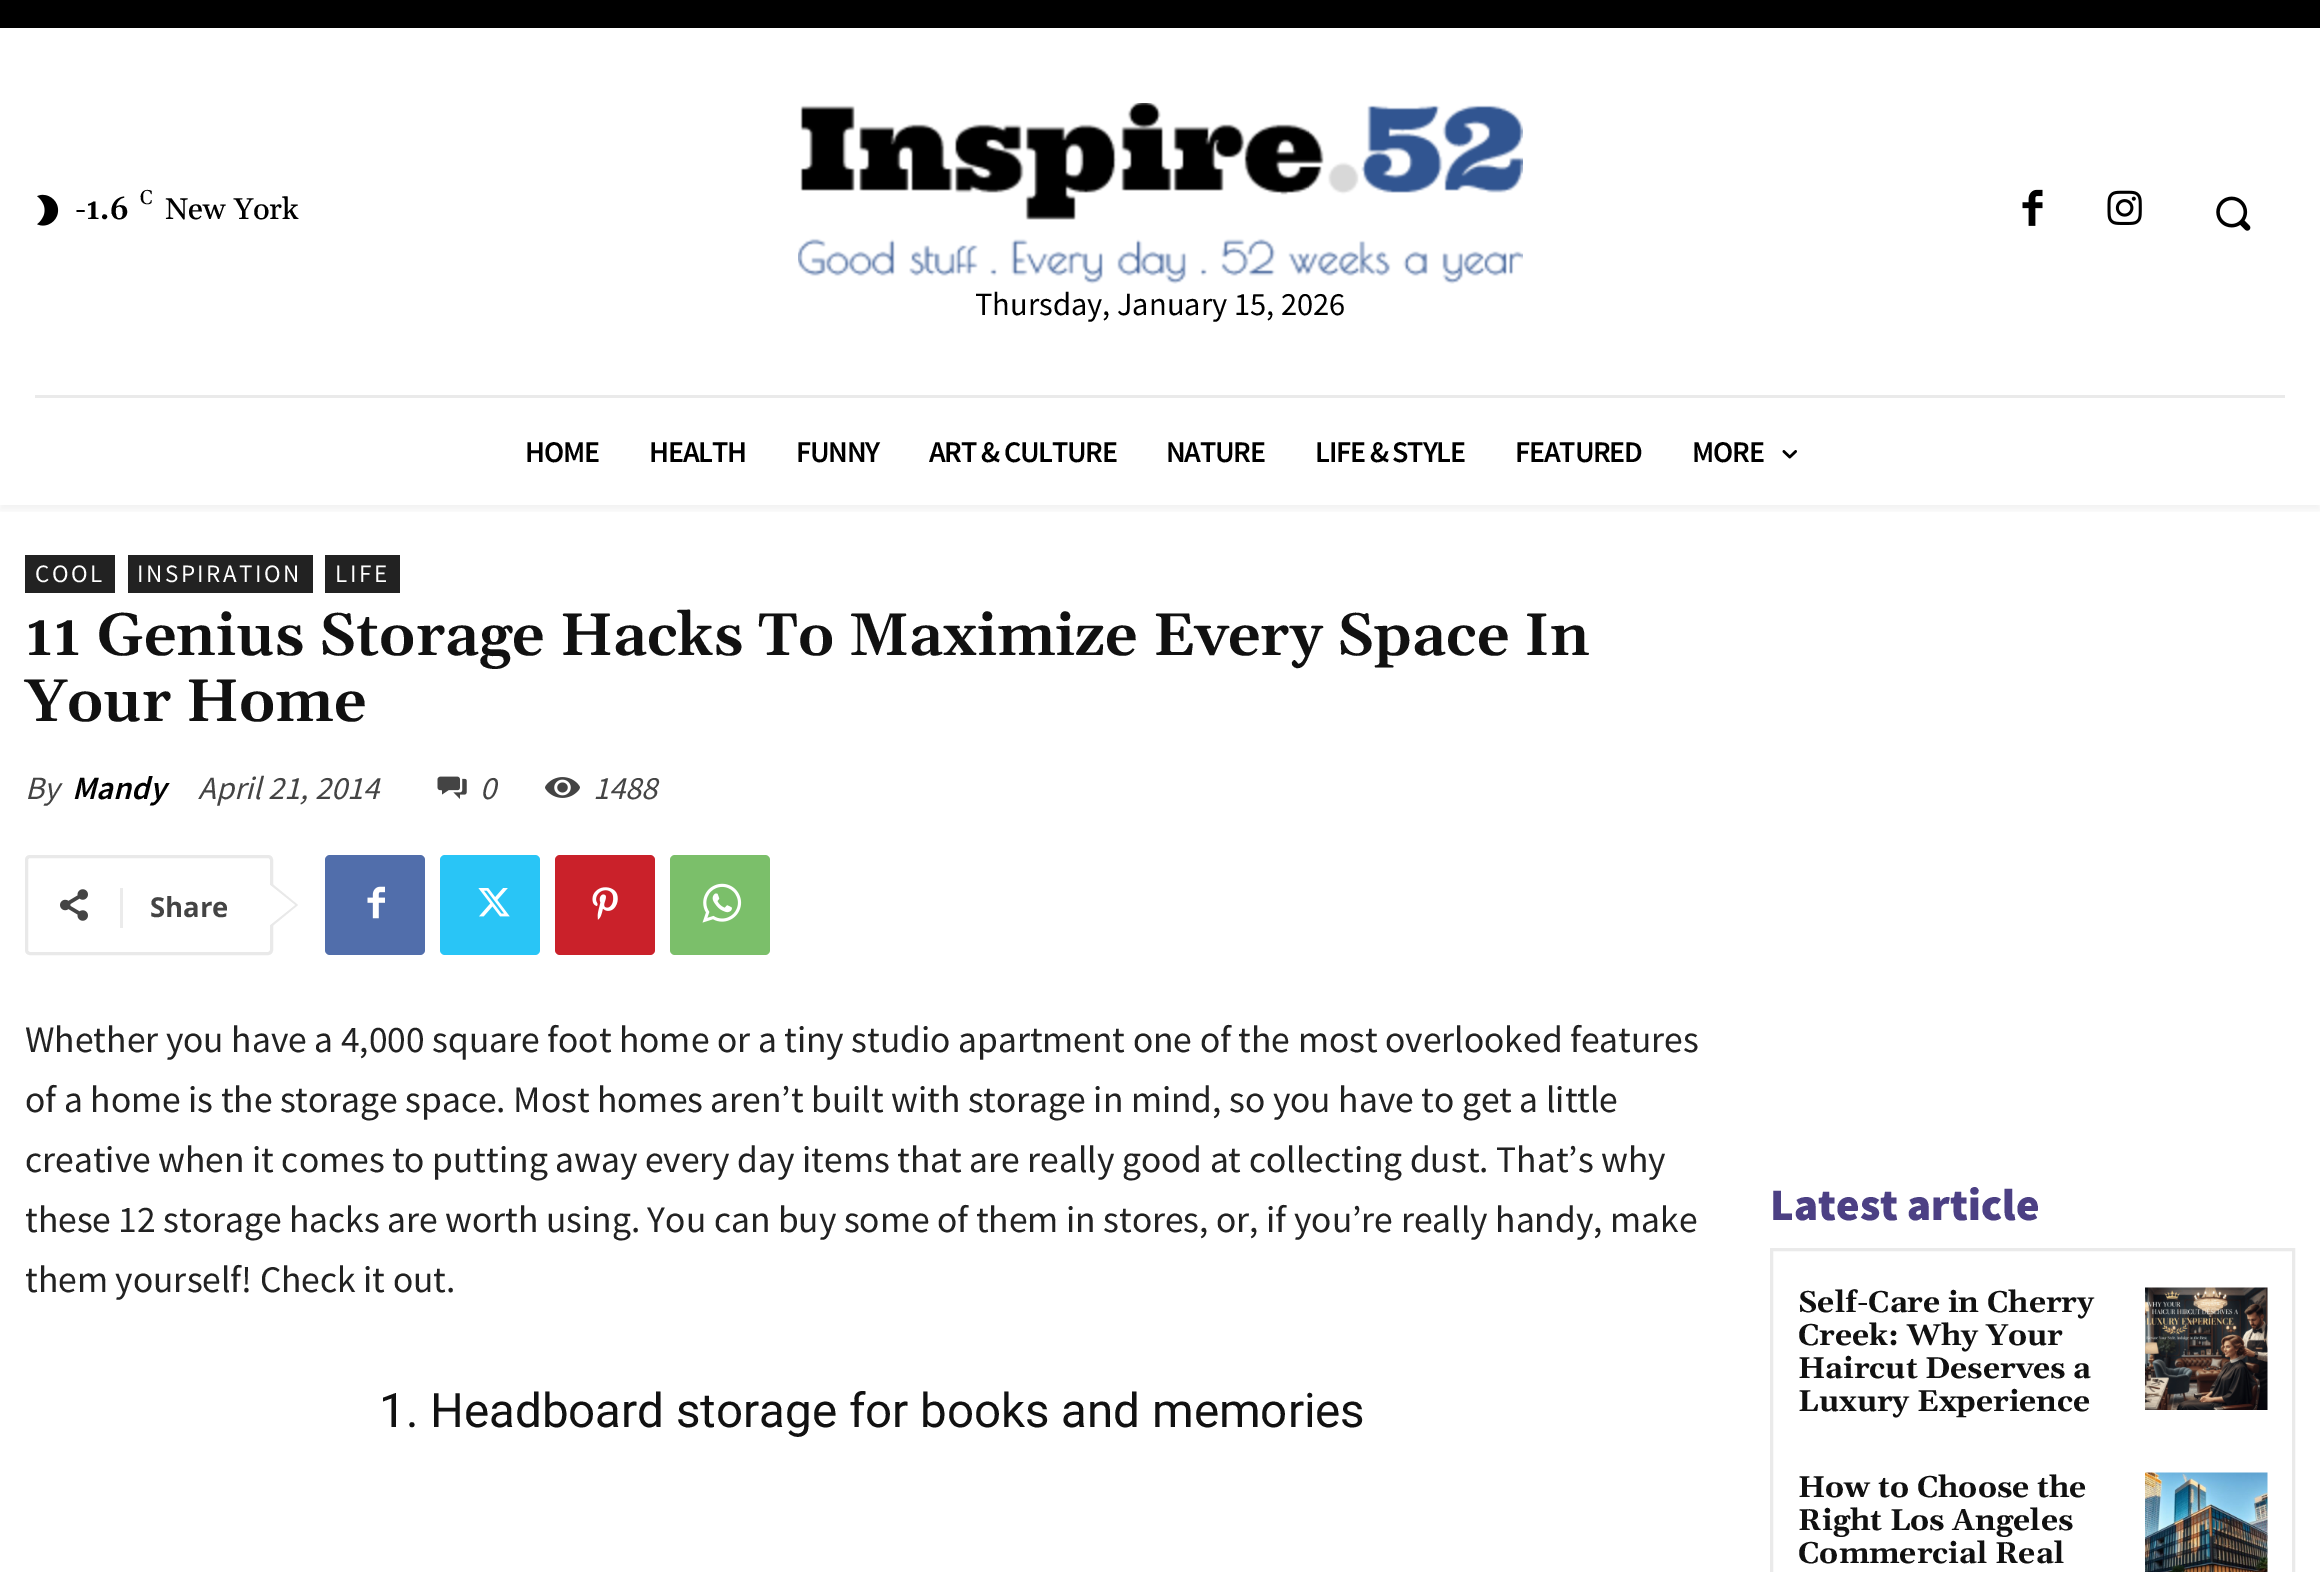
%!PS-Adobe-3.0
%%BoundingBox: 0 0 2320 1572
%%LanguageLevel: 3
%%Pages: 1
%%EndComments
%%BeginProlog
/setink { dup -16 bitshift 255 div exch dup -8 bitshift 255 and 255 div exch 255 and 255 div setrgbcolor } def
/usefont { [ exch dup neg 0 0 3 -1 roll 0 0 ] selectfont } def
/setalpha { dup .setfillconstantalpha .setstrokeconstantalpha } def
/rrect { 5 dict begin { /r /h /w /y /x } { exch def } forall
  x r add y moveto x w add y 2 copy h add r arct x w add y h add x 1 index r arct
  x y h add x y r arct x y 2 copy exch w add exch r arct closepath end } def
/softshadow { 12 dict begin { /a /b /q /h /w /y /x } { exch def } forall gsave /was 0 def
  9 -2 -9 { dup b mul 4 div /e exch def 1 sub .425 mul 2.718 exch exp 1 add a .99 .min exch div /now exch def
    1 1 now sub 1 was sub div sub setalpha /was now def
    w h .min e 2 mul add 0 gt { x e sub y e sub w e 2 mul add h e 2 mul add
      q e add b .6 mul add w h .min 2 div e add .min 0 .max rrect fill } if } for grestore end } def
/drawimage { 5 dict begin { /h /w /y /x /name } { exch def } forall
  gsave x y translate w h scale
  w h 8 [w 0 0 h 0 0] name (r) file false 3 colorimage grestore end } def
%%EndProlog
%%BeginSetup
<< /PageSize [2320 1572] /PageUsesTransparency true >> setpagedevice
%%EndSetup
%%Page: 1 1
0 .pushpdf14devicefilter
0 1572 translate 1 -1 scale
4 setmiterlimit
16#FFFFFF setink
0 0 2320 1572 rectfill
16#000000 setink
0 0 2320 28 rectfill
(img1.raw) 37 194 22 32 drawimage
/Gelasio-SemiBold 30 usefont
75 219 moveto (-1.6) show
/Gelasio-Regular 20 usefont
140 204 moveto (C) show
/Gelasio-Medium 30 usefont
165 219 moveto (New York) show
(img2.raw) 2022 189 21 37 drawimage
(img3.raw) 2107 190 35 35 drawimage
(img4.raw) 2216 196 35 35 drawimage
(img5.raw) 798 103 725 181 drawimage
/SourceSansPro-Regular 32.5 usefont
975 315 moveto (Thursday, January 15, 2026) show
16#EAEAEA setink
35 395 2250 3 rectfill
gsave
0 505 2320 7 rectclip
16#000000 setink
0 325 2320 185 0 5 0.06 softshadow
grestore
/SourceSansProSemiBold-SemiBold 30 usefont
16#000000 setink
525 462 moveto -1.25 0 (HOME) ashow
649 462 moveto -1.25 0 (HEALTH) ashow
796 462 moveto -1.25 0 (FUNNY) ashow
929 462 moveto -1.25 0 (ART & CULTURE) ashow
1166 462 moveto -1.25 0 (NATURE) ashow
1315 462 moveto -1.25 0 (LIFE & STYLE) ashow
1515 462 moveto -1.25 0 (FEATURED) ashow
1692 462 moveto -1.25 0 (MORE) ashow
(img6.raw) 1782 450 15 9 drawimage
16#222222 setink
25 555 90 38 rectfill
/SourceSansPro-Regular 25 usefont
16#FFFFFF setink
35 582 moveto 2.5 0 (COOL) ashow
16#222222 setink
128 555 185 38 rectfill
16#FFFFFF setink
137 582 moveto 2.5 0 (INSPIRATION) ashow
16#222222 setink
325 555 75 38 rectfill
16#FFFFFF setink
335 582 moveto 2.5 0 (LIFE) ashow
/Gelasio-SemiBold 60 usefont
16#111111 setink
25 655 moveto (11 Genius Storage Hacks To Maximize Every Space In) show
25 721 moveto (Your Home) show
/SourceSansPro-Italic 32.5 usefont
16#444444 setink
25 799 moveto (By) show
/SourceSansProSemiBold-SemiBoldItalic 32.5 usefont
16#000000 setink
72 799 moveto (Mandy) show
/SourceSansPro-Italic 32.5 usefont
16#444444 setink
198 799 moveto (April 21, 2014) show
(img7.raw) 437 776 30 23 drawimage
480 799 moveto (0) show
(img8.raw) 545 777 35 21 drawimage
593 799 moveto (1488) show
16#E9E9E9 setink
3 setlinewidth
26.5 856.5 245 97 3.5 rrect stroke
270 928 moveto 270 882 lineto 298 905 lineto closepath fill
(img9.raw) 60 889 28 32 drawimage
16#EBEBEB setink
120 888 3 40 rectfill
/OpenSans-Bold 27.5 usefont
16#444444 setink
150 917 moveto (Share) show
16#FFFFFF setink
270 925 moveto 270 885 lineto 295 905 lineto closepath fill
16#516EAB setink
325 855 100 100 5 rrect fill
(img10.raw) 367 886 18 33 drawimage
16#29C5F6 setink
440 855 100 100 5 rrect fill
(img11.raw) 478 888 32 29 drawimage
16#CA212A setink
555 855 100 100 5 rrect fill
(img12.raw) 592 887 26 33 drawimage
16#7BBF6A setink
670 855 100 100 5 rrect fill
(img13.raw) 702 883 40 40 drawimage
/SourceSansPro-Regular 37.5 usefont
16#222222 setink
[
    [(Whether you have a 4,000 square foot home or a tiny studio apartment one of the most overlooked features) 25 1052]
    [(of a home is the storage space. Most homes aren’t built with storage in mind, so you have to get a little) 25 1112]
    [(creative when it comes to putting away every day items that are really good at collecting dust. That’s why) 25 1172]
    [(these 12 storage hacks are worth using. You can buy some of them in stores, or, if you’re really handy, make) 25 1232]
    [(them yourself! Check it out.) 25 1292]
] { aload pop moveto show } forall
/Roboto-Regular 47.5 usefont
16#111111 setink
379 1427 moveto (1. Headboard storage for books and memories) show
/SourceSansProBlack-Black 45 usefont
16#4C4084 setink
1770 1220 moveto (Latest article) show
16#EAEAEA setink
1771.5 1249.5 522 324 rectstroke
/Gelasio-Bold 30 usefont
16#111111 setink
[
    [(Self-Care in Cherry) 1798 1312]
    [(Creek: Why Your) 1798 1345]
    [(Haircut Deserves a) 1798 1378]
    [(Luxury Experience) 1798 1411]
] { aload pop moveto show } forall
(img14.raw) 2145 1287 123 123 drawimage
[
    [(How to Choose the) 1798 1497]
    [(Right Los Angeles) 1798 1530]
    [(Commercial Real) 1798 1563]
] { aload pop moveto show } forall
(img15.raw) 2145 1472 123 100 drawimage
.poppdf14devicefilter showpage
%%EOF
